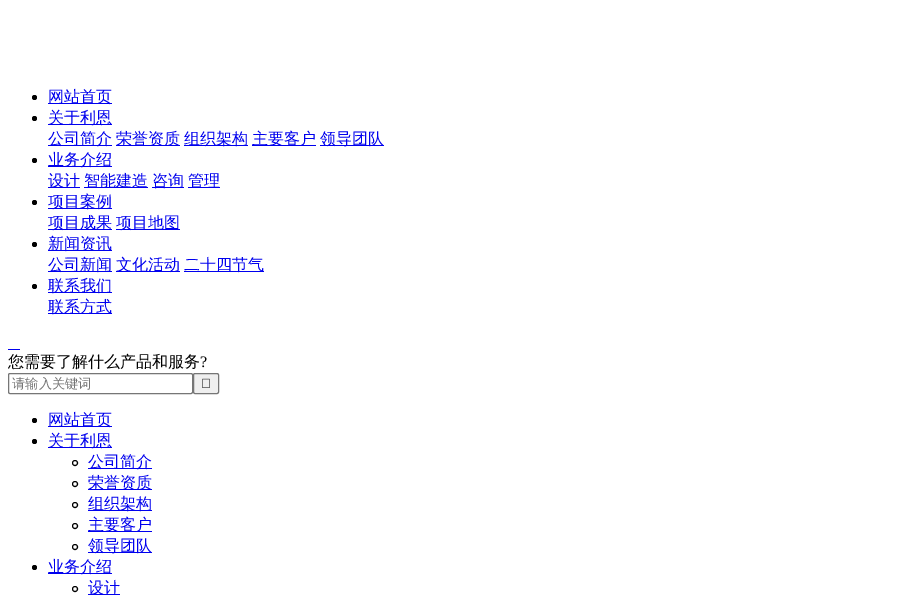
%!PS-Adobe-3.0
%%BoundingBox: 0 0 909 602
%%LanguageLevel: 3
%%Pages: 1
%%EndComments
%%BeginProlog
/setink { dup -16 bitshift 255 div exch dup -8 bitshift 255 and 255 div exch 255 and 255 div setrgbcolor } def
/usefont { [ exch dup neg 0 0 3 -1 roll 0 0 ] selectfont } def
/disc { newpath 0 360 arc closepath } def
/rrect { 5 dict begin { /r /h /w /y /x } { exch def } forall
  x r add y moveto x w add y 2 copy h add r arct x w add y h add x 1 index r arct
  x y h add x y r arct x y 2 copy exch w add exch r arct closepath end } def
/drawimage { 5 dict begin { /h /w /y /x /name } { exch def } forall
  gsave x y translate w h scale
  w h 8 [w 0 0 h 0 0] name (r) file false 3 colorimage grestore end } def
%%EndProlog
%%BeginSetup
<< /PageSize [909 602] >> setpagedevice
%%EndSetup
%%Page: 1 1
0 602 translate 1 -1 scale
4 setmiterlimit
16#FFFFFF setink
0 0 909 602 rectfill
16#000000 setink
34.5 97.5 2.5 disc fill
16#0000EE setink
48 103 64 1 rectfill
/WenQuanYiZenHei-Medium 16 usefont
48 102 moveto (网站首页) show
16#000000 setink
34.5 118.5 2.5 disc fill
16#0000EE setink
48 124 64 1 rectfill
48 123 moveto (关于利恩) show
48 145 64 1 rectfill
48 144 moveto (公司简介) show
116 145 64 1 rectfill
116 144 moveto (荣誉资质) show
184 145 64 1 rectfill
184 144 moveto (组织架构) show
252 145 64 1 rectfill
252 144 moveto (主要客户) show
320 145 64 1 rectfill
320 144 moveto (领导团队) show
16#000000 setink
34.5 160.5 2.5 disc fill
16#0000EE setink
48 166 64 1 rectfill
48 165 moveto (业务介绍) show
48 187 32 1 rectfill
48 186 moveto (设计) show
84 187 64 1 rectfill
84 186 moveto (智能建造) show
152 187 32 1 rectfill
152 186 moveto (咨询) show
188 187 32 1 rectfill
188 186 moveto (管理) show
16#000000 setink
34.5 202.5 2.5 disc fill
16#0000EE setink
48 208 64 1 rectfill
48 207 moveto (项目案例) show
48 229 64 1 rectfill
48 228 moveto (项目成果) show
116 229 64 1 rectfill
116 228 moveto (项目地图) show
16#000000 setink
34.5 244.5 2.5 disc fill
16#0000EE setink
48 250 64 1 rectfill
48 249 moveto (新闻资讯) show
48 271 64 1 rectfill
48 270 moveto (公司新闻) show
116 271 64 1 rectfill
116 270 moveto (文化活动) show
184 271 80 1 rectfill
184 270 moveto (二十四节气) show
16#000000 setink
34.5 286.5 2.5 disc fill
16#0000EE setink
48 292 64 1 rectfill
48 291 moveto (联系我们) show
48 313 64 1 rectfill
48 312 moveto (联系方式) show
8 349 12 1 rectfill
16#000000 setink
8 367 moveto (您需要了解什么产品和服务) show
/LiberationSerif-Regular 16 usefont
200 367 moveto (?) show
16#767676 setink
8.5 373.5 184 20 1.5 rrect stroke
/WenQuanYiZenHei-Medium 13.25 usefont
16#757575 setink
12 388 moveto (请输入关键词) show
16#EFEFEF setink
193.5 373.5 25 20 1.5 rrect gsave fill grestore
16#767676 setink
stroke
(img1.raw) 202 378 8 10 drawimage
16#000000 setink
34.5 420.5 2.5 disc fill
16#0000EE setink
48 426 64 1 rectfill
/WenQuanYiZenHei-Medium 16 usefont
48 425 moveto (网站首页) show
16#000000 setink
34.5 441.5 2.5 disc fill
16#0000EE setink
48 447 64 1 rectfill
48 446 moveto (关于利恩) show
16#000000 setink
75 463 2.5 disc stroke
16#0000EE setink
88 468 64 1 rectfill
88 467 moveto (公司简介) show
16#000000 setink
75 484 2.5 disc stroke
16#0000EE setink
88 489 64 1 rectfill
88 488 moveto (荣誉资质) show
16#000000 setink
75 505 2.5 disc stroke
16#0000EE setink
88 510 64 1 rectfill
88 509 moveto (组织架构) show
16#000000 setink
75 526 2.5 disc stroke
16#0000EE setink
88 531 64 1 rectfill
88 530 moveto (主要客户) show
16#000000 setink
75 547 2.5 disc stroke
16#0000EE setink
88 552 64 1 rectfill
88 551 moveto (领导团队) show
16#000000 setink
34.5 567.5 2.5 disc fill
16#0000EE setink
48 573 64 1 rectfill
48 572 moveto (业务介绍) show
16#000000 setink
75 589 2.5 disc stroke
16#0000EE setink
88 594 32 1 rectfill
88 593 moveto (设计) show
showpage
%%EOF
